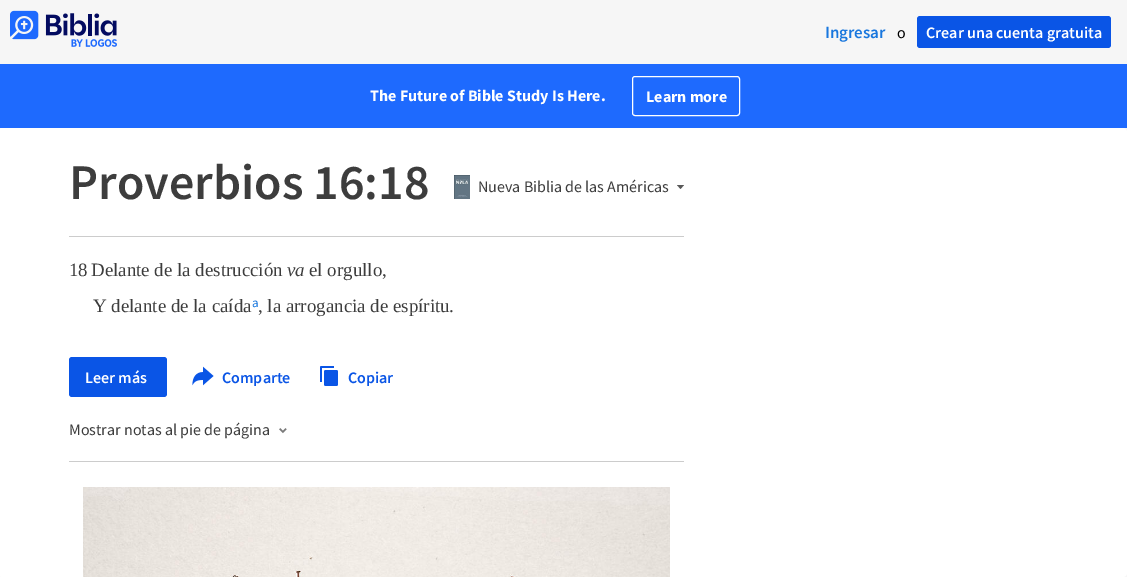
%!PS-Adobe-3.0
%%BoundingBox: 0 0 1127 577
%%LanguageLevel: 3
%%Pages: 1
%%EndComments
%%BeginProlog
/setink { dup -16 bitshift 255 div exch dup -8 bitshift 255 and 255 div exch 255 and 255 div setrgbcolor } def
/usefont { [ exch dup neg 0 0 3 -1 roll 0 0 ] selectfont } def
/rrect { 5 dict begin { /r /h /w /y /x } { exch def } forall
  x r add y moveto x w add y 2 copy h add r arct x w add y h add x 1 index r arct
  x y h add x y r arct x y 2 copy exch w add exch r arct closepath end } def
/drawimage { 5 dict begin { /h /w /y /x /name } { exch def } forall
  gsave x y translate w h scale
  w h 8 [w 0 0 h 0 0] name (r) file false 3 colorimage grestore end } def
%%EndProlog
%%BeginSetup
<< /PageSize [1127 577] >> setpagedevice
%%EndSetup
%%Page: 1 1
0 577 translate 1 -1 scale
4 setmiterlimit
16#F6F6F6 setink
0 0 1127 577 rectfill
(img1.raw) 10 10 107 37 drawimage
/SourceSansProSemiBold-SemiBold 17 usefont
16#1977DE setink
825 38 moveto (Ingresar) show
/SourceSansPro-Regular 16 usefont
16#000000 setink
897 38 moveto (o) show
16#0A55E6 setink
917 16 194 32 3 rrect fill
/SourceSansProSemiBold-SemiBold 16 usefont
16#FFFFFF setink
926 38 moveto (Crear una cuenta gratuita) show
16#1E6AFE setink
0 64 1127 64 rectfill
/SourceSansPro-Bold 16 usefont
16#FFFFFF setink
370 101 moveto (The Future of Bible Study Is Here.) show
632.5 76.5 107 39 2.5 rrect stroke
646 102 moveto (Learn more) show
-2 128 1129 449 4 rrect fill
16#CCCCCC setink
69 236 615 1 rectfill
/SourceSansProSemiBold-SemiBold 50 usefont
16#3D3D3D setink
69 199 moveto (Proverbios 16:18) show
(img2.raw) 454 175 16 24 drawimage
/SourceSansPro-Regular 16 usefont
478 192 moveto (Nueva Biblia de las Américas) show
16#585858 setink
680.5 189 moveto 684 185 lineto 677 185 lineto closepath eofill
/LiberationSerif-Regular 18.9 usefont
16#3D3D3D setink
69 276 moveto (18) show
91 276 moveto (Delante de la destrucción) show
/LiberationSerif-Italic 18.9 usefont
287 276 moveto (va) show
/LiberationSerif-Regular 18.9 usefont
309 276 moveto (el orgullo,) show
93 312 moveto (Y delante de la caída) show
/SourceSansPro-Regular 13 usefont
16#1977DE setink
252 307 moveto (a) show
/LiberationSerif-Regular 18.9 usefont
16#3D3D3D setink
258 312 moveto (, la arrogancia de espíritu.) show
16#0A55E6 setink
69 357 98 40 3 rrect fill
/SourceSansProSemiBold-SemiBold 16 usefont
16#FFFFFF setink
85 383 moveto (Leer más) show
(img3.raw) 192 366 22 20 drawimage
16#0A55E6 setink
222 383 moveto (Comparte) show
(img4.raw) 320 366 18 20 drawimage
348 383 moveto (Copiar) show
/SourceSansPro-Regular 16 usefont
16#3D3D3D setink
69 435 moveto (Mostrar notas al pie de página) show
(img5.raw) 279 428 8 6 drawimage
16#CCCCCC setink
69 461 615 1 rectfill
(img6.raw) 83 487 587 90 drawimage
showpage
%%EOF
